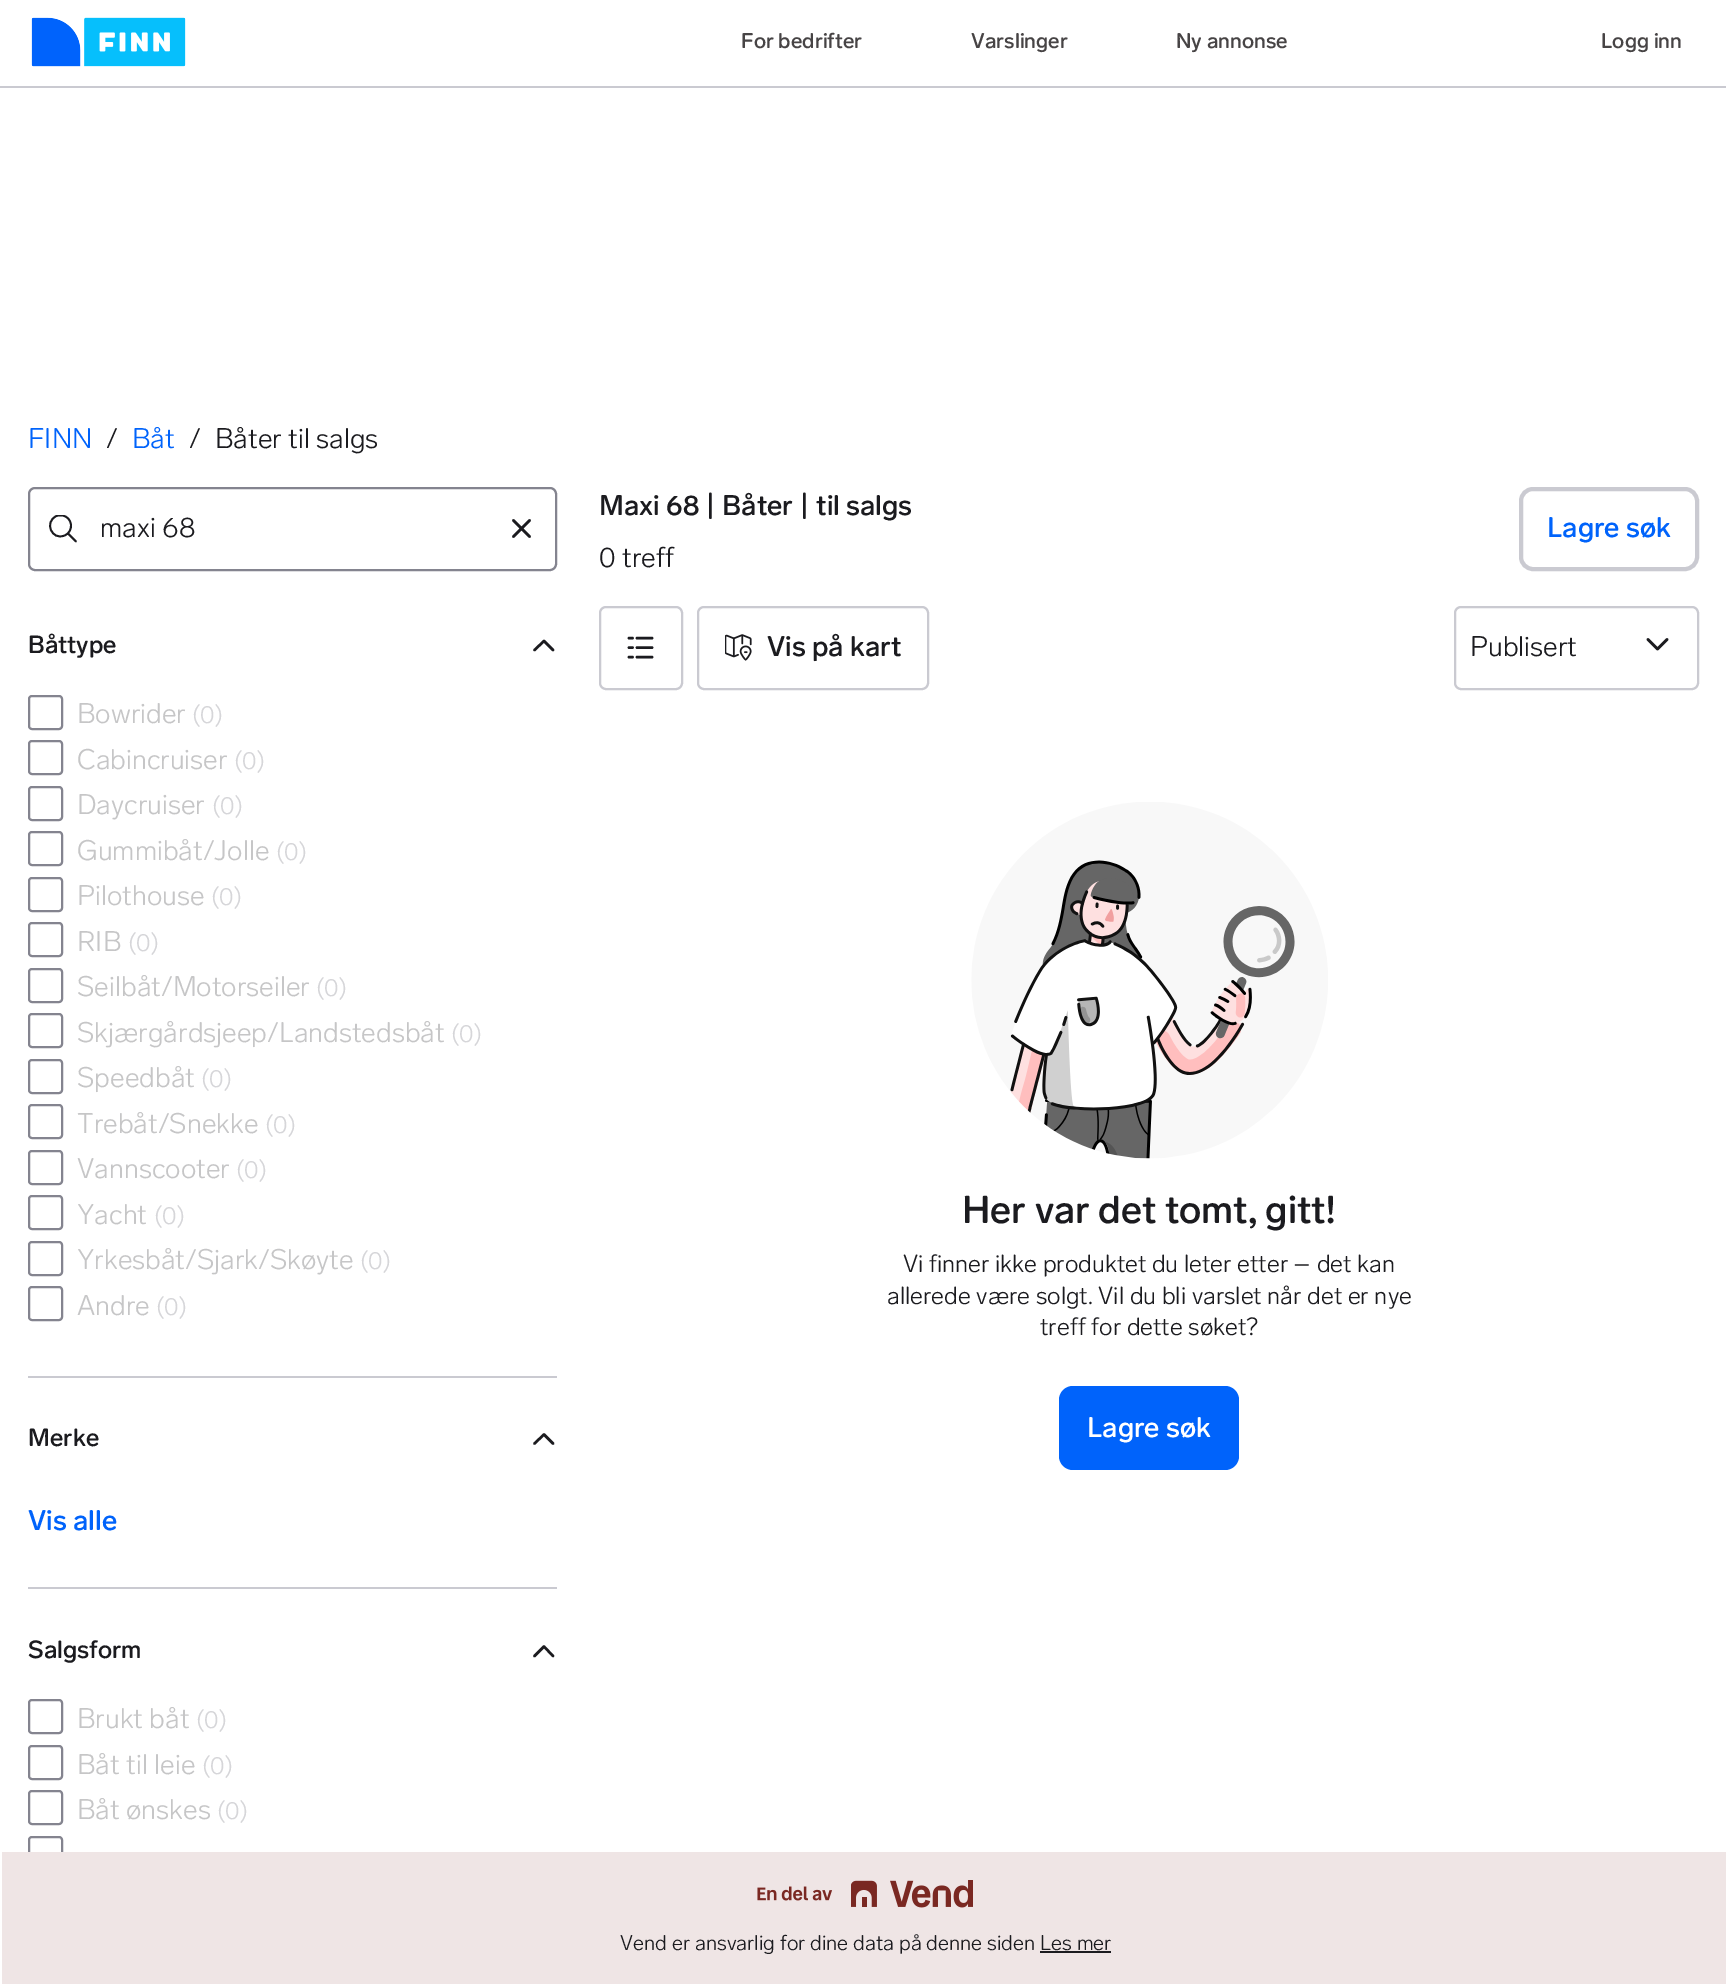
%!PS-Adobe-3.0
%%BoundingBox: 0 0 1726 1984
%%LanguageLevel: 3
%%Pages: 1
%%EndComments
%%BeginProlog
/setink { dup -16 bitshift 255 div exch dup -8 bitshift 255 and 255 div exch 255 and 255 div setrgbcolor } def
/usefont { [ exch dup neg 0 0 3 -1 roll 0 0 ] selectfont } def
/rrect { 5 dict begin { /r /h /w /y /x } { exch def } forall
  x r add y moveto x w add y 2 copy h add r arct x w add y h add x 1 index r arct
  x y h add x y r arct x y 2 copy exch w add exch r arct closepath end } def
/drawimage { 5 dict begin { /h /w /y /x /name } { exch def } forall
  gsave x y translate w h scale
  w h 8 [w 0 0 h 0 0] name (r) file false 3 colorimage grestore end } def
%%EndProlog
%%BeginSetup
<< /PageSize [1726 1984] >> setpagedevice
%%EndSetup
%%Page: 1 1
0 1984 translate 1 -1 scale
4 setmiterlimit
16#FFFFFF setink
0 0 1726 1984 rectfill
16#CACAD1 setink
0 86 1726 2 rectfill
(img1.raw) 31 17 155 50 drawimage
/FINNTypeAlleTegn-Medium 21 usefont
16#474445 setink
[
    [(For bedrifter) 741 48]
    [(Varslinger) 971 48]
    [(Ny annonse) 1176 48]
    [(Logg inn) 1601 48]
] { aload pop moveto show } forall
/FINNTypeAlleTegn-Light 28 usefont
16#0063FB setink
28 448 moveto (FINN) show
16#1B1B1F setink
106 448 moveto (/) show
16#0063FB setink
132 448 moveto (Båt) show
16#1B1B1F setink
189 448 moveto (/) show
215 448 moveto (Båter til salgs) show
16#84848F setink
2 setlinewidth
29 488 527 82 6 rrect stroke
gsave
49 515 28 28 rectclip
16#1B1B1F setink
1.8 setlinewidth
1 setlinecap
1 setlinejoin
64.5 535.5 moveto 74.5 531.5 72.5 516.5 62 515.5 curveto 60 515 58 515.5 56.5 516 curveto 43.5 522 52 541 64.5 535.5 curveto closepath 68 533.5 moveto 76 541.5 lineto stroke
grestore
16#1B1B1F setink
100 537 moveto (maxi 68) show
2.6 setlinewidth
1 setlinecap
1 setlinejoin
529.5 520.5 moveto 513.5 536.5 lineto 513.5 520.5 moveto 529.5 536.5 lineto stroke
/FINNTypeAlleTegn-Medium 24.5 usefont
28 653 moveto (Båttype) show
2.5 setlinewidth
553 650 moveto 544 641 lineto 534.5 650 lineto stroke
16#84848F setink
2 setlinewidth
0 setlinecap
0 setlinejoin
29 696 33 33 3 rrect stroke
/FINNTypeAlleTegn-Light 28 usefont
16#C6C6C7 setink
77 723 moveto (Bowrider) show
/FINNTypeAlleTegn-Light 24.5 usefont
16#D6D6D9 setink
192 723 moveto (\(0\)) show
16#84848F setink
29 741 33 33 3 rrect stroke
/FINNTypeAlleTegn-Light 28 usefont
16#C6C6C7 setink
77 769 moveto (Cabincruiser) show
/FINNTypeAlleTegn-Light 24.5 usefont
16#D6D6D9 setink
234 769 moveto (\(0\)) show
16#84848F setink
29 787 33 33 3 rrect stroke
/FINNTypeAlleTegn-Light 28 usefont
16#C6C6C7 setink
77 814 moveto (Daycruiser) show
/FINNTypeAlleTegn-Light 24.5 usefont
16#D6D6D9 setink
212 814 moveto (\(0\)) show
16#84848F setink
29 832 33 33 3 rrect stroke
/FINNTypeAlleTegn-Light 28 usefont
16#C6C6C7 setink
77 860 moveto (Gummibåt/Jolle) show
/FINNTypeAlleTegn-Light 24.5 usefont
16#D6D6D9 setink
276 860 moveto (\(0\)) show
16#84848F setink
29 878 33 33 3 rrect stroke
/FINNTypeAlleTegn-Light 28 usefont
16#C6C6C7 setink
77 905 moveto (Pilothouse) show
/FINNTypeAlleTegn-Light 24.5 usefont
16#D6D6D9 setink
211 905 moveto (\(0\)) show
16#84848F setink
29 923 33 33 3 rrect stroke
/FINNTypeAlleTegn-Light 28 usefont
16#C6C6C7 setink
77 951 moveto (RIB) show
/FINNTypeAlleTegn-Light 24.5 usefont
16#D6D6D9 setink
128 951 moveto (\(0\)) show
16#84848F setink
29 969 33 33 3 rrect stroke
/FINNTypeAlleTegn-Light 28 usefont
16#C6C6C7 setink
77 996 moveto (Seilbåt/Motorseiler) show
/FINNTypeAlleTegn-Light 24.5 usefont
16#D6D6D9 setink
316 996 moveto (\(0\)) show
16#84848F setink
29 1014 33 33 3 rrect stroke
/FINNTypeAlleTegn-Light 28 usefont
16#C6C6C7 setink
77 1042 moveto (Skjærgårdsjeep/Landstedsbåt) show
/FINNTypeAlleTegn-Light 24.5 usefont
16#D6D6D9 setink
451 1042 moveto (\(0\)) show
16#84848F setink
29 1060 33 33 3 rrect stroke
/FINNTypeAlleTegn-Light 28 usefont
16#C6C6C7 setink
77 1087 moveto (Speedbåt) show
/FINNTypeAlleTegn-Light 24.5 usefont
16#D6D6D9 setink
201 1087 moveto (\(0\)) show
16#84848F setink
29 1105 33 33 3 rrect stroke
/FINNTypeAlleTegn-Light 28 usefont
16#C6C6C7 setink
77 1133 moveto (Trebåt/Snekke) show
/FINNTypeAlleTegn-Light 24.5 usefont
16#D6D6D9 setink
265 1133 moveto (\(0\)) show
16#84848F setink
29 1151 33 33 3 rrect stroke
/FINNTypeAlleTegn-Light 28 usefont
16#C6C6C7 setink
77 1178 moveto (Vannscooter) show
/FINNTypeAlleTegn-Light 24.5 usefont
16#D6D6D9 setink
236 1178 moveto (\(0\)) show
16#84848F setink
29 1196 33 33 3 rrect stroke
/FINNTypeAlleTegn-Light 28 usefont
16#C6C6C7 setink
77 1224 moveto (Yacht) show
/FINNTypeAlleTegn-Light 24.5 usefont
16#D6D6D9 setink
154 1224 moveto (\(0\)) show
16#84848F setink
29 1242 33 33 3 rrect stroke
/FINNTypeAlleTegn-Light 28 usefont
16#C6C6C7 setink
77 1269 moveto (Yrkesbåt/Sjark/Skøyte) show
/FINNTypeAlleTegn-Light 24.5 usefont
16#D6D6D9 setink
360 1269 moveto (\(0\)) show
16#84848F setink
29 1287 33 33 3 rrect stroke
/FINNTypeAlleTegn-Light 28 usefont
16#C6C6C7 setink
77 1315 moveto (Andre) show
/FINNTypeAlleTegn-Light 24.5 usefont
16#D6D6D9 setink
156 1315 moveto (\(0\)) show
16#CACAD1 setink
28 1376 529 2 rectfill
/FINNTypeAlleTegn-Medium 24.5 usefont
16#1B1B1F setink
28 1446 moveto (Merke) show
2.5 setlinewidth
1 setlinecap
1 setlinejoin
553 1443.5 moveto 544 1434.5 lineto 534.5 1443.5 lineto stroke
/FINNTypeAlleTegn-Medium 28 usefont
16#0063FB setink
28 1530 moveto (Vis alle) show
16#CACAD1 setink
28 1587 529 2 rectfill
/FINNTypeAlleTegn-Medium 24.5 usefont
16#1B1B1F setink
28 1658 moveto (Salgsform) show
553 1656 moveto 544 1646.5 lineto 534.5 1656 lineto stroke
16#84848F setink
2 setlinewidth
0 setlinecap
0 setlinejoin
29 1700 33 33 3 rrect stroke
/FINNTypeAlleTegn-Light 28 usefont
16#C6C6C7 setink
77 1728 moveto (Brukt båt) show
/FINNTypeAlleTegn-Light 24.5 usefont
16#D6D6D9 setink
196 1728 moveto (\(0\)) show
16#84848F setink
29 1746 33 33 3 rrect stroke
/FINNTypeAlleTegn-Light 28 usefont
16#C6C6C7 setink
77 1774 moveto (Båt til leie) show
/FINNTypeAlleTegn-Light 24.5 usefont
16#D6D6D9 setink
202 1774 moveto (\(0\)) show
16#84848F setink
29 1791 33 33 3 rrect stroke
/FINNTypeAlleTegn-Light 28 usefont
16#C6C6C7 setink
77 1819 moveto (Båt ønskes) show
/FINNTypeAlleTegn-Light 24.5 usefont
16#D6D6D9 setink
217 1819 moveto (\(0\)) show
16#84848F setink
29 1837 33 33 3 rrect stroke
/FINNTypeAlleTegn-Medium 28 usefont
16#1B1B1F setink
599 515 moveto (Maxi 68 | Båter | til salgs) show
/FINNTypeAlleTegn-Light 28 usefont
599 567 moveto (0 treff) show
16#CACAD1 setink
4 setlinewidth
1521 489 176 80 12 rrect stroke
/FINNTypeAlleTegn-Medium 28 usefont
16#0063FB setink
1547 537 moveto (Lagre søk) show
16#CACAD1 setink
2 setlinewidth
600 607 82 82 6 rrect stroke
16#1B1B1F setink
2.6 setlinewidth
1 setlinecap
1 setlinejoin
652 638 moveto 637 638 lineto 629 638 moveto 632.5 638 lineto 652 647.5 moveto 637 647.5 lineto 629 647.5 moveto 632.5 647.5 lineto 652 657 moveto 637 657 lineto 629 657 moveto 632.5 657 lineto stroke
16#CACAD1 setink
2 setlinewidth
0 setlinecap
0 setlinejoin
698 607 230 82 6 rrect stroke
(img2.raw) 725 634 27 27 drawimage
16#1B1B1F setink
767 656 moveto (Vis på kart) show
16#CACAD1 setink
1455 607 243 82 6 rrect stroke
/FINNTypeAlleTegn-Light 28 usefont
16#1B1B1F setink
1470 656 moveto (Publisert) show
2.6 setlinewidth
1 setlinecap
1 setlinejoin
1648 639.5 moveto 1657.5 649 lineto 1667 639.5 lineto stroke
(img3.raw) 971 802 357 357 drawimage
/FINNTypeAlleTegn-Medium 38.5 usefont
962 1223 moveto (Her var det tomt, gitt!) show
/FINNTypeAlleTegn-Light 24.5 usefont
[
    [(Vi finner ikke produktet du leter etter – det kan) 903 1272]
    [(allerede være solgt. Vil du bli varslet når det er nye) 887 1304]
    [(treff for dette søket?) 1040 1335]
] { aload pop moveto show } forall
16#0063FB setink
1059 1386 180 84 14 rrect fill
/FINNTypeAlleTegn-Medium 28 usefont
16#FFFFFF setink
1087 1437 moveto (Lagre søk) show
16#EFE5E5 setink
2 1852 1724 132 rectfill
(img4.raw) 757 1880 216 28 drawimage
/FINNTypeAlleTegn-Light 21 usefont
16#1B1B1F setink
620 1950 moveto (Vend er ansvarlig for dine data på denne siden Les mer) show
1040 1951 71 2 rectfill
showpage
%%EOF
